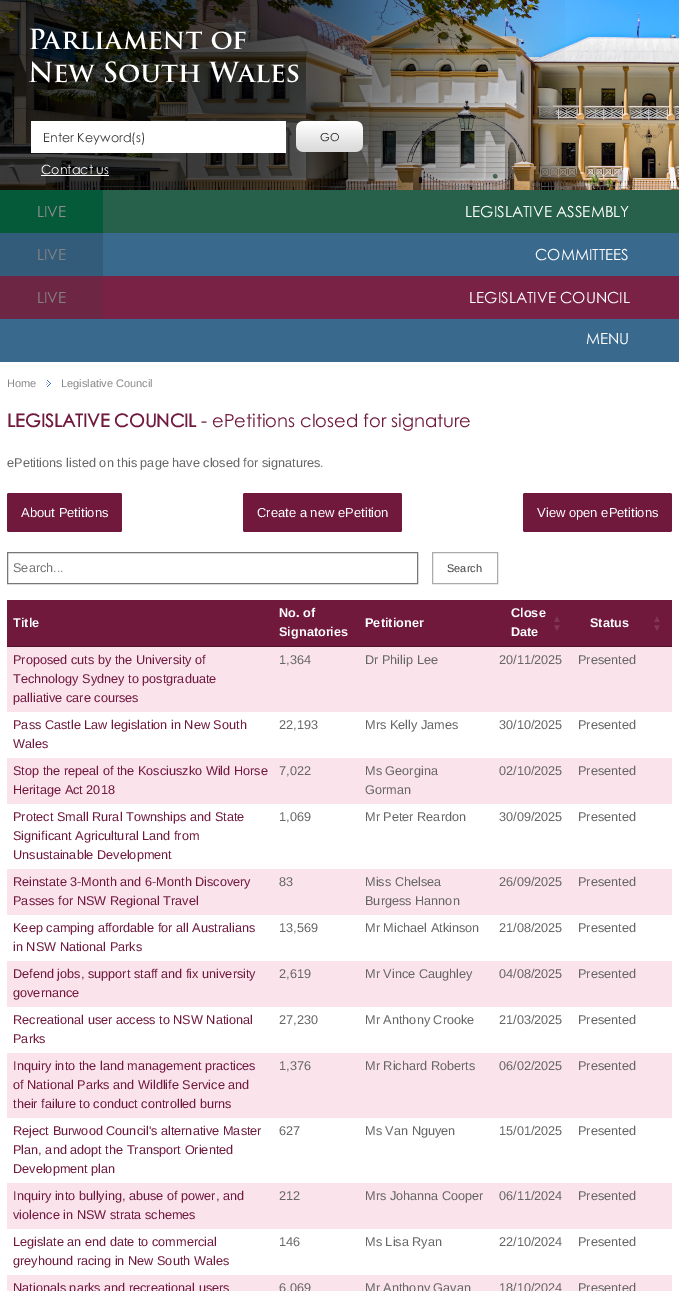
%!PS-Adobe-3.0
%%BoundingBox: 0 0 679 1291
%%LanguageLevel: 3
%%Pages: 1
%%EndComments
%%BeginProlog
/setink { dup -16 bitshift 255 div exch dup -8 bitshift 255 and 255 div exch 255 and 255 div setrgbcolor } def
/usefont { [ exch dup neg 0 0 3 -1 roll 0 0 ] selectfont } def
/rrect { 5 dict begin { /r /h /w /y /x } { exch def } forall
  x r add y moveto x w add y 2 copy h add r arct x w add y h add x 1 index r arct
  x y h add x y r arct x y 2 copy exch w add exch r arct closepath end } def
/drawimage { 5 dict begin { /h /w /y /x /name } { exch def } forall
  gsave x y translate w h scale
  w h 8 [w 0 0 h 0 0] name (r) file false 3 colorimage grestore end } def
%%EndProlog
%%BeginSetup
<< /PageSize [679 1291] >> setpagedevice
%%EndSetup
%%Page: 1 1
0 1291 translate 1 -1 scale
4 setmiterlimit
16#FFFFFF setink
0 0 679 1291 rectfill
(img1.raw) 0 0 679 190 drawimage
(img2.raw) 0 0 565 190 drawimage
(img3.raw) 29 28 270 55 drawimage
31 121 255 32 rectfill
/CenturyGothic-Regular 12.7 usefont
16#3B3B3B setink
43 142 moveto (Enter Keyword\(s\)) show
(img4.raw) 296 121 67 31 drawimage
/CenturyGothic-Regular 11 usefont
16#242424 setink
320 141 moveto (GO) show
/CenturyGothic-Regular 12.7 usefont
16#FFFFFF setink
41 174 moveto (Contact us) show
[
    [41 175 68 1 16#FFFFFF]
    [103 190 576 43 16#27614B]
    [0 190 103 43 16#045A39]
] { aload pop setink rectfill } forall
/CenturyGothic-Regular 15.25 usefont
16#8E8D8D setink
37 217 moveto (LIVE) show
16#FFFFFF setink
465 217 moveto (LEGISLATIVE ASSEMBLY) show
16#3A698E setink
103 233 576 43 rectfill
16#335B7A setink
0 233 103 43 rectfill
16#848282 setink
37 260 moveto (LIVE) show
16#FFFFFF setink
535 260 moveto (COMMITTEES) show
16#7A2246 setink
103 276 576 43 rectfill
16#6D2643 setink
0 276 103 43 rectfill
16#848282 setink
37 303 moveto (LIVE) show
16#FFFFFF setink
469 303 moveto (LEGISLATIVE COUNCIL) show
16#3A698E setink
0 319 679 43 rectfill
16#FFFFFF setink
586 344 moveto (MENU) show
/LiberationSans-Regular 11 usefont
16#888888 setink
7 387 moveto (Home) show
(img5.raw) 46 380 5 7 drawimage
61 387 moveto (Legislative Council) show
/CenturyGothic-Bold 18 usefont
16#70193D setink
7 427 moveto (LEGISLATIVE COUNCIL) show
/CenturyGothic-Regular 18 usefont
201 427 moveto (- ePetitions closed for signature) show
/LiberationSans-Regular 12.7 usefont
16#666666 setink
7 467 moveto (ePetitions listed on this page have closed for signatures.) show
16#70193D setink
7 493 115 39 2 rrect fill
/LiberationSans-Regular 13 usefont
16#FFFFFF setink
21 517 moveto (About Petitions) show
16#70193D setink
243 493 159 39 2 rrect fill
16#FFFFFF setink
257 517 moveto (Create a new ePetition) show
16#70193D setink
523 493 149 39 2 rrect fill
16#FFFFFF setink
537 517 moveto (View open ePetitions) show
16#777777 setink
7.5 552.5 410 31 rectstroke
/LiberationSans-Regular 12.7 usefont
16#757575 setink
13 572 moveto (Search...) show
16#ABABAB setink
432.5 552.5 65 31 rectstroke
/LiberationSans-Regular 11 usefont
16#444444 setink
447 572 moveto (Search) show
16#70193D setink
7 600 665 46 rectfill
16#4E122B setink
7 646 665 1 rectfill
/LiberationSans-Bold 12.7 usefont
16#FFFFFF setink
[
    [(Title) 13 627]
    [(No. of) 279 617]
    [(Signatories) 279 636]
    [(Petitioner) 365 627]
    [(Close) 511 617]
] { aload pop moveto show } forall
/LiberationSans-Bold 10 usefont
16#823655 setink
552 622 moveto (▲) show
/LiberationSans-Bold 12.7 usefont
16#FFFFFF setink
511 636 moveto (Date) show
/LiberationSans-Bold 10 usefont
16#823655 setink
552 631 moveto (▼) show
/LiberationSans-Bold 12.7 usefont
16#FFFFFF setink
590 627 moveto (Status) show
/LiberationSans-Bold 10 usefont
16#823655 setink
652 622 moveto (▲) show
652 631 moveto (▼) show
16#FBE3EC setink
7 647 665 65 rectfill
/LiberationSans-Regular 12.7 usefont
16#70193D setink
[
    [(Proposed cuts by the University of) 13 664]
    [(Technology Sydney to postgraduate) 13 683]
    [(palliative care courses) 13 702]
] { aload pop moveto show } forall
16#666666 setink
[
    [(1,364) 279 664]
    [(Dr Philip Lee) 365 664]
    [(20/11/2025) 499 664]
    [(Presented) 578 664]
] { aload pop moveto show } forall
16#70193D setink
13 729 moveto (Pass Castle Law legislation in New South) show
13 748 moveto (Wales) show
16#666666 setink
[
    [(22,193) 279 729]
    [(Mrs Kelly James) 365 729]
    [(30/10/2025) 499 729]
    [(Presented) 578 729]
] { aload pop moveto show } forall
16#FBE3EC setink
7 758 665 46 rectfill
16#70193D setink
13 775 moveto (Stop the repeal of the Kosciuszko Wild Horse) show
13 794 moveto (Heritage Act 2018) show
16#666666 setink
[
    [(7,022) 279 775]
    [(Ms Georgina) 365 775]
    [(Gorman) 365 794]
    [(02/10/2025) 499 775]
    [(Presented) 578 775]
] { aload pop moveto show } forall
16#70193D setink
[
    [(Protect Small Rural Townships and State) 13 821]
    [(Significant Agricultural Land from) 13 840]
    [(Unsustainable Development) 13 859]
] { aload pop moveto show } forall
16#666666 setink
[
    [(1,069) 279 821]
    [(Mr Peter Reardon) 365 821]
    [(30/09/2025) 499 821]
    [(Presented) 578 821]
] { aload pop moveto show } forall
16#FBE3EC setink
7 869 665 46 rectfill
16#70193D setink
13 886 moveto (Reinstate 3-Month and 6-Month Discovery) show
13 905 moveto (Passes for NSW Regional Travel) show
16#666666 setink
[
    [(83) 279 886]
    [(Miss Chelsea) 365 886]
    [(Burgess Hannon) 365 905]
    [(26/09/2025) 499 886]
    [(Presented) 578 886]
] { aload pop moveto show } forall
16#70193D setink
13 932 moveto (Keep camping affordable for all Australians) show
13 951 moveto (in NSW National Parks) show
16#666666 setink
[
    [(13,569) 279 932]
    [(Mr Michael Atkinson) 365 932]
    [(21/08/2025) 499 932]
    [(Presented) 578 932]
] { aload pop moveto show } forall
16#FBE3EC setink
7 961 665 46 rectfill
16#70193D setink
13 978 moveto (Defend jobs, support staff and fix university) show
13 997 moveto (governance) show
16#666666 setink
[
    [(2,619) 279 978]
    [(Mr Vince Caughley) 365 978]
    [(04/08/2025) 499 978]
    [(Presented) 578 978]
] { aload pop moveto show } forall
16#70193D setink
13 1024 moveto (Recreational user access to NSW National) show
13 1043 moveto (Parks) show
16#666666 setink
[
    [(27,230) 279 1024]
    [(Mr Anthony Crooke) 365 1024]
    [(21/03/2025) 499 1024]
    [(Presented) 578 1024]
] { aload pop moveto show } forall
16#FBE3EC setink
7 1053 665 65 rectfill
16#70193D setink
[
    [(Inquiry into the land management practices) 13 1070]
    [(of National Parks and Wildlife Service and) 13 1089]
    [(their failure to conduct controlled burns) 13 1108]
] { aload pop moveto show } forall
16#666666 setink
[
    [(1,376) 279 1070]
    [(Mr Richard Roberts) 365 1070]
    [(06/02/2025) 499 1070]
    [(Presented) 578 1070]
] { aload pop moveto show } forall
16#70193D setink
[
    [(Reject Burwood Council's alternative Master) 13 1135]
    [(Plan, and adopt the Transport Oriented) 13 1154]
    [(Development plan) 13 1173]
] { aload pop moveto show } forall
16#666666 setink
[
    [(627) 279 1135]
    [(Ms Van Nguyen) 365 1135]
    [(15/01/2025) 499 1135]
    [(Presented) 578 1135]
] { aload pop moveto show } forall
16#FBE3EC setink
7 1183 665 46 rectfill
16#70193D setink
13 1200 moveto (Inquiry into bullying, abuse of power, and) show
13 1219 moveto (violence in NSW strata schemes) show
16#666666 setink
[
    [(212) 279 1200]
    [(Mrs Johanna Cooper) 365 1200]
    [(06/11/2024) 499 1200]
    [(Presented) 578 1200]
] { aload pop moveto show } forall
16#70193D setink
13 1246 moveto (Legislate an end date to commercial) show
13 1265 moveto (greyhound racing in New South Wales) show
16#666666 setink
[
    [(146) 279 1246]
    [(Ms Lisa Ryan) 365 1246]
    [(22/10/2024) 499 1246]
    [(Presented) 578 1246]
] { aload pop moveto show } forall
16#FBE3EC setink
7 1275 665 16 rectfill
16#70193D setink
13 1292 moveto (Nationals parks and recreational users) show
16#666666 setink
[
    [(6,069) 279 1292]
    [(Mr Anthony Gavan) 365 1292]
    [(18/10/2024) 499 1292]
    [(Presented) 578 1292]
] { aload pop moveto show } forall
showpage
%%EOF
